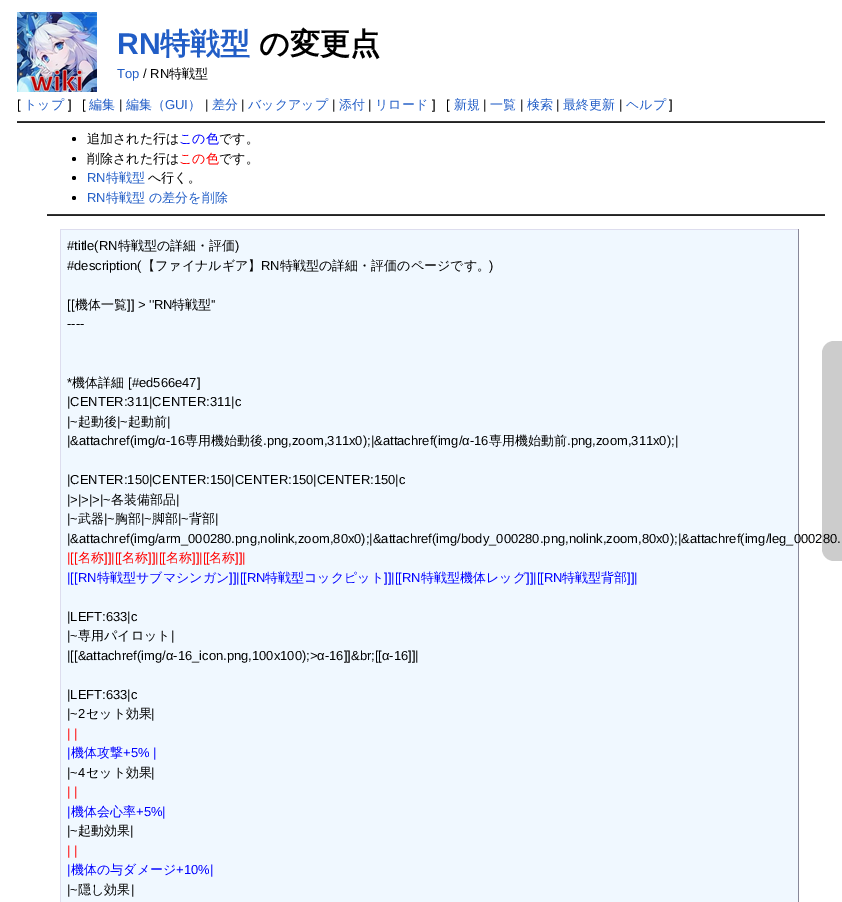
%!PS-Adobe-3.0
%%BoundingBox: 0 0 842 902
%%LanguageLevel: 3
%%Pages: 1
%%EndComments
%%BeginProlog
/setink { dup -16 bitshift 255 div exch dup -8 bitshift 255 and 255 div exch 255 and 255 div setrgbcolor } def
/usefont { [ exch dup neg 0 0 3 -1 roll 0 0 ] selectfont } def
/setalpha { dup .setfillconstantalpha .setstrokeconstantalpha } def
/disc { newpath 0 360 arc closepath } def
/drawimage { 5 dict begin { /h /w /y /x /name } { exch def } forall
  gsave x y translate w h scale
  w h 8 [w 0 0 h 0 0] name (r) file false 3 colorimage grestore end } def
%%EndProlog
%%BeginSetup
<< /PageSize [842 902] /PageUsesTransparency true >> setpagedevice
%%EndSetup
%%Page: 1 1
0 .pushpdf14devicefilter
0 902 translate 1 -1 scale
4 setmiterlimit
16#FFFFFF setink
0 0 842 902 rectfill
(img1.raw) 17 12 80 80 drawimage
/LiberationSans-Bold 30 usefont
16#215DC6 setink
117 54 moveto (RN) show
/WenQuanYiZenHei-Bold 30 usefont
160 54 moveto (特戦型) show
16#000000 setink
259 54 moveto (の変更点) show
/LiberationSans-Regular 13 usefont
16#215DC6 setink
117 78 moveto (Top) show
16#000000 setink
143 78 moveto (/ RN) show
/WenQuanYiZenHei-Medium 13 usefont
169 78 moveto (特戦型) show
/LiberationSans-Regular 13 usefont
17 109 moveto ([) show
/WenQuanYiZenHei-Medium 13 usefont
16#215DC6 setink
24 109 moveto (トップ) show
/LiberationSans-Regular 13 usefont
16#000000 setink
68 109 moveto (]) show
82 109 moveto ([) show
/WenQuanYiZenHei-Medium 13 usefont
16#215DC6 setink
89 109 moveto (編集) show
/LiberationSans-Regular 13 usefont
16#000000 setink
119 109 moveto (|) show
/WenQuanYiZenHei-Medium 13 usefont
16#215DC6 setink
126 109 moveto (編集（) show
/LiberationSans-Regular 13 usefont
165 109 moveto (GUI) show
/WenQuanYiZenHei-Medium 13 usefont
188 109 moveto (）) show
/LiberationSans-Regular 13 usefont
16#000000 setink
205 109 moveto (|) show
/WenQuanYiZenHei-Medium 13 usefont
16#215DC6 setink
212 109 moveto (差分) show
/LiberationSans-Regular 13 usefont
16#000000 setink
241 109 moveto (|) show
/WenQuanYiZenHei-Medium 13 usefont
16#215DC6 setink
248 109 moveto (バックアップ) show
/LiberationSans-Regular 13 usefont
16#000000 setink
332 109 moveto (|) show
/WenQuanYiZenHei-Medium 13 usefont
16#215DC6 setink
339 109 moveto (添付) show
/LiberationSans-Regular 13 usefont
16#000000 setink
368 109 moveto (|) show
/WenQuanYiZenHei-Medium 13 usefont
16#215DC6 setink
375 109 moveto (リロード) show
/LiberationSans-Regular 13 usefont
16#000000 setink
432 109 moveto (]) show
446 109 moveto ([) show
/WenQuanYiZenHei-Medium 13 usefont
16#215DC6 setink
454 109 moveto (新規) show
/LiberationSans-Regular 13 usefont
16#000000 setink
483 109 moveto (|) show
/WenQuanYiZenHei-Medium 13 usefont
16#215DC6 setink
490 109 moveto (一覧) show
/LiberationSans-Regular 13 usefont
16#000000 setink
520 109 moveto (|) show
/WenQuanYiZenHei-Medium 13 usefont
16#215DC6 setink
527 109 moveto (検索) show
/LiberationSans-Regular 13 usefont
16#000000 setink
556 109 moveto (|) show
/WenQuanYiZenHei-Medium 13 usefont
16#215DC6 setink
563 109 moveto (最終更新) show
/LiberationSans-Regular 13 usefont
16#000000 setink
619 109 moveto (|) show
/WenQuanYiZenHei-Medium 13 usefont
16#215DC6 setink
626 109 moveto (ヘルプ) show
/LiberationSans-Regular 13 usefont
16#000000 setink
669 109 moveto (]) show
16#333333 setink
17 121 808 1 rectfill
16#222222 setink
17 122 808 1 rectfill
16#000000 setink
74 139 2 disc fill
/WenQuanYiZenHei-Medium 13 usefont
87 143 moveto (追加された行は) show
16#0000FF setink
179 143 moveto (この色) show
16#000000 setink
219 143 moveto (です。) show
74 159 2 disc fill
87 163 moveto (削除された行は) show
16#FF0000 setink
179 163 moveto (この色) show
16#000000 setink
219 163 moveto (です。) show
74 178 2 disc fill
/LiberationSans-Regular 13 usefont
16#215DC6 setink
87 182 moveto (RN) show
/WenQuanYiZenHei-Medium 13 usefont
106 182 moveto (特戦型) show
16#000000 setink
148 182 moveto (へ行く。) show
74 198 2 disc fill
/LiberationSans-Regular 13 usefont
16#215DC6 setink
87 202 moveto (RN) show
/WenQuanYiZenHei-Medium 13 usefont
106 202 moveto (特戦型 の差分を削除) show
[
    [47 214 778 1 16#333333]
    [47 215 778 1 16#222222]
    [61 230 737 672 16#F0F8FF]
    [60 229 739 1 16#DDDDEE]
    [798 229 1 673 16#888899]
    [60 229 1 673 16#DDDDEE]
] { aload pop setink rectfill } forall
/LiberationSans-Regular 13 usefont
16#000000 setink
67 250 moveto (#title\(RN) show
/WenQuanYiZenHei-Medium 13 usefont
118 250 moveto (特戦型の詳細・評価) show
/LiberationSans-Regular 13 usefont
235 250 moveto (\)) show
67 270 moveto (#description\() show
/WenQuanYiZenHei-Medium 13 usefont
142 270 moveto (【ファイナルギア】) show
/LiberationSans-Regular 13 usefont
261 270 moveto (RN) show
/WenQuanYiZenHei-Medium 13 usefont
280 270 moveto (特戦型の詳細・評価のページです。) show
/LiberationSans-Regular 13 usefont
489 270 moveto (\)) show
67 309 moveto ([[) show
/WenQuanYiZenHei-Medium 13 usefont
75 309 moveto (機体一覧) show
/LiberationSans-Regular 13 usefont
127 309 moveto (]] > ''RN) show
/WenQuanYiZenHei-Medium 13 usefont
172 309 moveto (特戦型) show
/LiberationSans-Regular 13 usefont
[
    [('') 211 309]
    [(----) 67 328]
    [(*) 67 387]
] { aload pop moveto show } forall
/WenQuanYiZenHei-Medium 13 usefont
72 387 moveto (機体詳細) show
/LiberationSans-Regular 13 usefont
[
    [([#ed566e47]) 128 387]
    [(|CENTER:311|CENTER:311|c) 67 406]
    [(|~) 67 426]
] { aload pop moveto show } forall
/WenQuanYiZenHei-Medium 13 usefont
78 426 moveto (起動後) show
/LiberationSans-Regular 13 usefont
117 426 moveto (|~) show
/WenQuanYiZenHei-Medium 13 usefont
128 426 moveto (起動前) show
/LiberationSans-Regular 13 usefont
167 426 moveto (|) show
67 445 moveto (|&attachref\(img/α-16) show
/WenQuanYiZenHei-Medium 13 usefont
185 445 moveto (専用機始動後) show
/LiberationSans-Regular 13 usefont
263 445 moveto (.png,zoom,311x0\);|&attachref\(img/α-16) show
/WenQuanYiZenHei-Medium 13 usefont
489 445 moveto (専用機始動前) show
/LiberationSans-Regular 13 usefont
[
    [(.png,zoom,311x0\);|) 567 445]
    [(|CENTER:150|CENTER:150|CENTER:150|CENTER:150|c) 67 484]
    [(|>|>|>|~) 67 504]
] { aload pop moveto show } forall
/WenQuanYiZenHei-Medium 13 usefont
111 504 moveto (各装備部品) show
/LiberationSans-Regular 13 usefont
176 504 moveto (|) show
67 523 moveto (|~) show
/WenQuanYiZenHei-Medium 13 usefont
78 523 moveto (武器) show
/LiberationSans-Regular 13 usefont
104 523 moveto (|~) show
/WenQuanYiZenHei-Medium 13 usefont
115 523 moveto (胸部) show
/LiberationSans-Regular 13 usefont
141 523 moveto (|~) show
/WenQuanYiZenHei-Medium 13 usefont
152 523 moveto (脚部) show
/LiberationSans-Regular 13 usefont
178 523 moveto (|~) show
/WenQuanYiZenHei-Medium 13 usefont
189 523 moveto (背部) show
/LiberationSans-Regular 13 usefont
215 523 moveto (|) show
67 543 moveto (|&attachref\(img/arm_000280.png,nolink,zoom,80x0\);|&attachref\(img/body_000280.png,nolink,zoom,80x0\);|&attachref\(img/leg_000280.) show
16#FF0000 setink
67 562 moveto (|[[) show
/WenQuanYiZenHei-Medium 13 usefont
78 562 moveto (名称) show
/LiberationSans-Regular 13 usefont
104 562 moveto (]]|[[) show
/WenQuanYiZenHei-Medium 13 usefont
122 562 moveto (名称) show
/LiberationSans-Regular 13 usefont
148 562 moveto (]]|[[) show
/WenQuanYiZenHei-Medium 13 usefont
166 562 moveto (名称) show
/LiberationSans-Regular 13 usefont
192 562 moveto (]]|[[) show
/WenQuanYiZenHei-Medium 13 usefont
209 562 moveto (名称) show
/LiberationSans-Regular 13 usefont
235 562 moveto (]]|) show
16#0000FF setink
67 582 moveto (|[[RN) show
/WenQuanYiZenHei-Medium 13 usefont
97 582 moveto (特戦型サブマシンガン) show
/LiberationSans-Regular 13 usefont
229 582 moveto (]]|[[RN) show
/WenQuanYiZenHei-Medium 13 usefont
265 582 moveto (特戦型コックピット) show
/LiberationSans-Regular 13 usefont
384 582 moveto (]]|[[RN) show
/WenQuanYiZenHei-Medium 13 usefont
421 582 moveto (特戦型機体レッグ) show
/LiberationSans-Regular 13 usefont
526 582 moveto (]]|[[RN) show
/WenQuanYiZenHei-Medium 13 usefont
562 582 moveto (特戦型背部) show
/LiberationSans-Regular 13 usefont
627 582 moveto (]]|) show
16#000000 setink
67 621 moveto (|LEFT:633|c) show
67 640 moveto (|~) show
/WenQuanYiZenHei-Medium 13 usefont
78 640 moveto (専用パイロット) show
/LiberationSans-Regular 13 usefont
[
    [(|) 171 640]
    [(|[[&attachref\(img/α-16_icon.png,100x100\);>α-16]]&br;[[α-16]]|) 67 660]
    [(|LEFT:633|c) 67 699]
    [(|~2) 67 718]
] { aload pop moveto show } forall
/WenQuanYiZenHei-Medium 13 usefont
86 718 moveto (セット効果) show
/LiberationSans-Regular 13 usefont
151 718 moveto (|) show
16#FF0000 setink
67 738 moveto (| |) show
16#0000FF setink
67 757 moveto (|) show
/WenQuanYiZenHei-Medium 13 usefont
71 757 moveto (機体攻撃) show
/LiberationSans-Regular 13 usefont
123 757 moveto (+5% |) show
16#000000 setink
67 777 moveto (|~4) show
/WenQuanYiZenHei-Medium 13 usefont
86 777 moveto (セット効果) show
/LiberationSans-Regular 13 usefont
151 777 moveto (|) show
16#FF0000 setink
67 796 moveto (| |) show
16#0000FF setink
67 816 moveto (|) show
/WenQuanYiZenHei-Medium 13 usefont
71 816 moveto (機体会心率) show
/LiberationSans-Regular 13 usefont
136 816 moveto (+5%|) show
16#000000 setink
67 835 moveto (|~) show
/WenQuanYiZenHei-Medium 13 usefont
78 835 moveto (起動効果) show
/LiberationSans-Regular 13 usefont
130 835 moveto (|) show
16#FF0000 setink
67 855 moveto (| |) show
16#0000FF setink
67 874 moveto (|) show
/WenQuanYiZenHei-Medium 13 usefont
71 874 moveto (機体の与ダメージ) show
/LiberationSans-Regular 13 usefont
176 874 moveto (+10%|) show
16#000000 setink
67 894 moveto (|~) show
/WenQuanYiZenHei-Medium 13 usefont
78 894 moveto (隠し効果) show
/LiberationSans-Regular 13 usefont
131 894 moveto (|) show
0.2 setalpha
834 341 moveto 842 341 lineto 842 561 lineto 834 561 lineto 827.5 561 822 555.5 822 549 curveto 822 353 lineto 822 346.5 827.5 341 834 341 curveto closepath fill
.poppdf14devicefilter showpage
%%EOF
